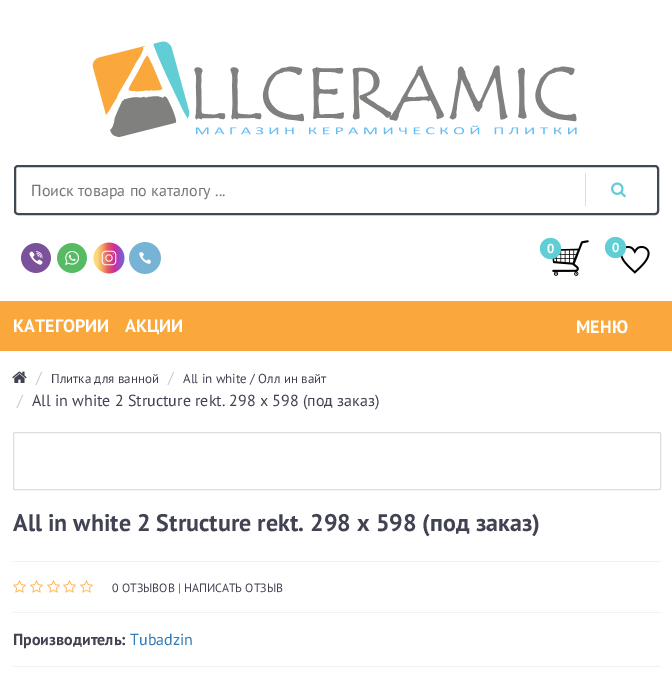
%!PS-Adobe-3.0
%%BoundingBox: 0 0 672 677
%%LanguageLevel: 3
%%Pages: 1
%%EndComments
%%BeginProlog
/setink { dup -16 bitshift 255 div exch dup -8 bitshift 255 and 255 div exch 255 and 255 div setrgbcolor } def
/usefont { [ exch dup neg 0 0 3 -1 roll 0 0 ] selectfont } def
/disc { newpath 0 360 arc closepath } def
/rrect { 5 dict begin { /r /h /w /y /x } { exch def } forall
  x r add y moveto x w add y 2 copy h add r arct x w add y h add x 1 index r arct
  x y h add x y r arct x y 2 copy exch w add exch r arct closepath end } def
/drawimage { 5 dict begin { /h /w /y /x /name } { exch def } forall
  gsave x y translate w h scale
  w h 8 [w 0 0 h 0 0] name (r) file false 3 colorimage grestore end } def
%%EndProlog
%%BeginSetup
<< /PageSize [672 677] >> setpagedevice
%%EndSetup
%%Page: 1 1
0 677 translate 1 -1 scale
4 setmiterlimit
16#FFFFFF setink
0 0 672 677 rectfill
(img1.raw) 92 41 485 96 drawimage
16#404755 setink
2 setlinewidth
15 166 643 48 3 rrect stroke
/PTSans-Regular 16 usefont
16#757575 setink
31 196 moveto (Поиск товара по каталогу ...) show
16#DDDDDD setink
585 173 1 33 rectfill
(img2.raw) 611 182 15 16 drawimage
(img3.raw) 21 243 30 30 drawimage
(img4.raw) 57 243 30 30 drawimage
(img5.raw) 93 242 32 32 drawimage
(img6.raw) 129 242 32 32 drawimage
(img7.raw) 552 240 37 36 drawimage
16#60CED4 setink
550.5 248.5 10.5 disc fill
/PTSans-Bold 13 usefont
16#FFFFFF setink
547 253 moveto (0) show
(img8.raw) 620 245 30 29 drawimage
16#60CED4 setink
615.5 247.5 10.5 disc fill
16#FFFFFF setink
612 252 moveto (0) show
16#FAA83C setink
0 301 672 50 rectfill
/PTSans-Bold 18 usefont
16#FFFFFF setink
[
    [(КАТЕГОРИИ) 13 332]
    [(АКЦИИ) 125 332]
    [(МЕНЮ) 576 333]
] { aload pop moveto show } forall
(img9.raw) 12 371 15 12 drawimage
/PTSans-Regular 16 usefont
16#CCCCCC setink
36 383 moveto (/) show
/PTSans-Regular 13 usefont
16#424352 setink
51 383 moveto (Плитка для ванной) show
/PTSans-Regular 16 usefont
16#CCCCCC setink
168 383 moveto (/) show
/PTSans-Regular 13 usefont
16#424352 setink
183 383 moveto (All in white / Олл ин вайт) show
/PTSans-Regular 16 usefont
16#CCCCCC setink
17 406 moveto (/) show
16#424352 setink
32 406 moveto (All in white 2 Structure rekt. 298 х 598 \(под заказ\)) show
16#DDDDDD setink
1 setlinewidth
13.5 432.5 647 57 1.5 rrect stroke
/PTSans-Bold 24 usefont
16#424352 setink
13 531 moveto (All in white 2 Structure rekt. 298 х 598 \(под заказ\)) show
16#F2F2F2 setink
13 561 648 1 rectfill
13 612 648 1 rectfill
(img10.raw) 13 580 13 13 drawimage
(img10.raw) 30 580 13 13 drawimage
(img10.raw) 47 580 13 13 drawimage
(img10.raw) 63 580 13 13 drawimage
(img10.raw) 80 580 13 13 drawimage
/PTSans-Regular 12 usefont
16#424352 setink
112 592 moveto (0 ОТЗЫВОВ | НАПИСАТЬ ОТЗЫВ) show
16#F2F2F2 setink
13 666 648 1 rectfill
/PTSans-Bold 16 usefont
16#424352 setink
13 645 moveto (Производитель:) show
/PTSans-Regular 16 usefont
16#337AB7 setink
130 645 moveto (Tubadzin) show
showpage
%%EOF
